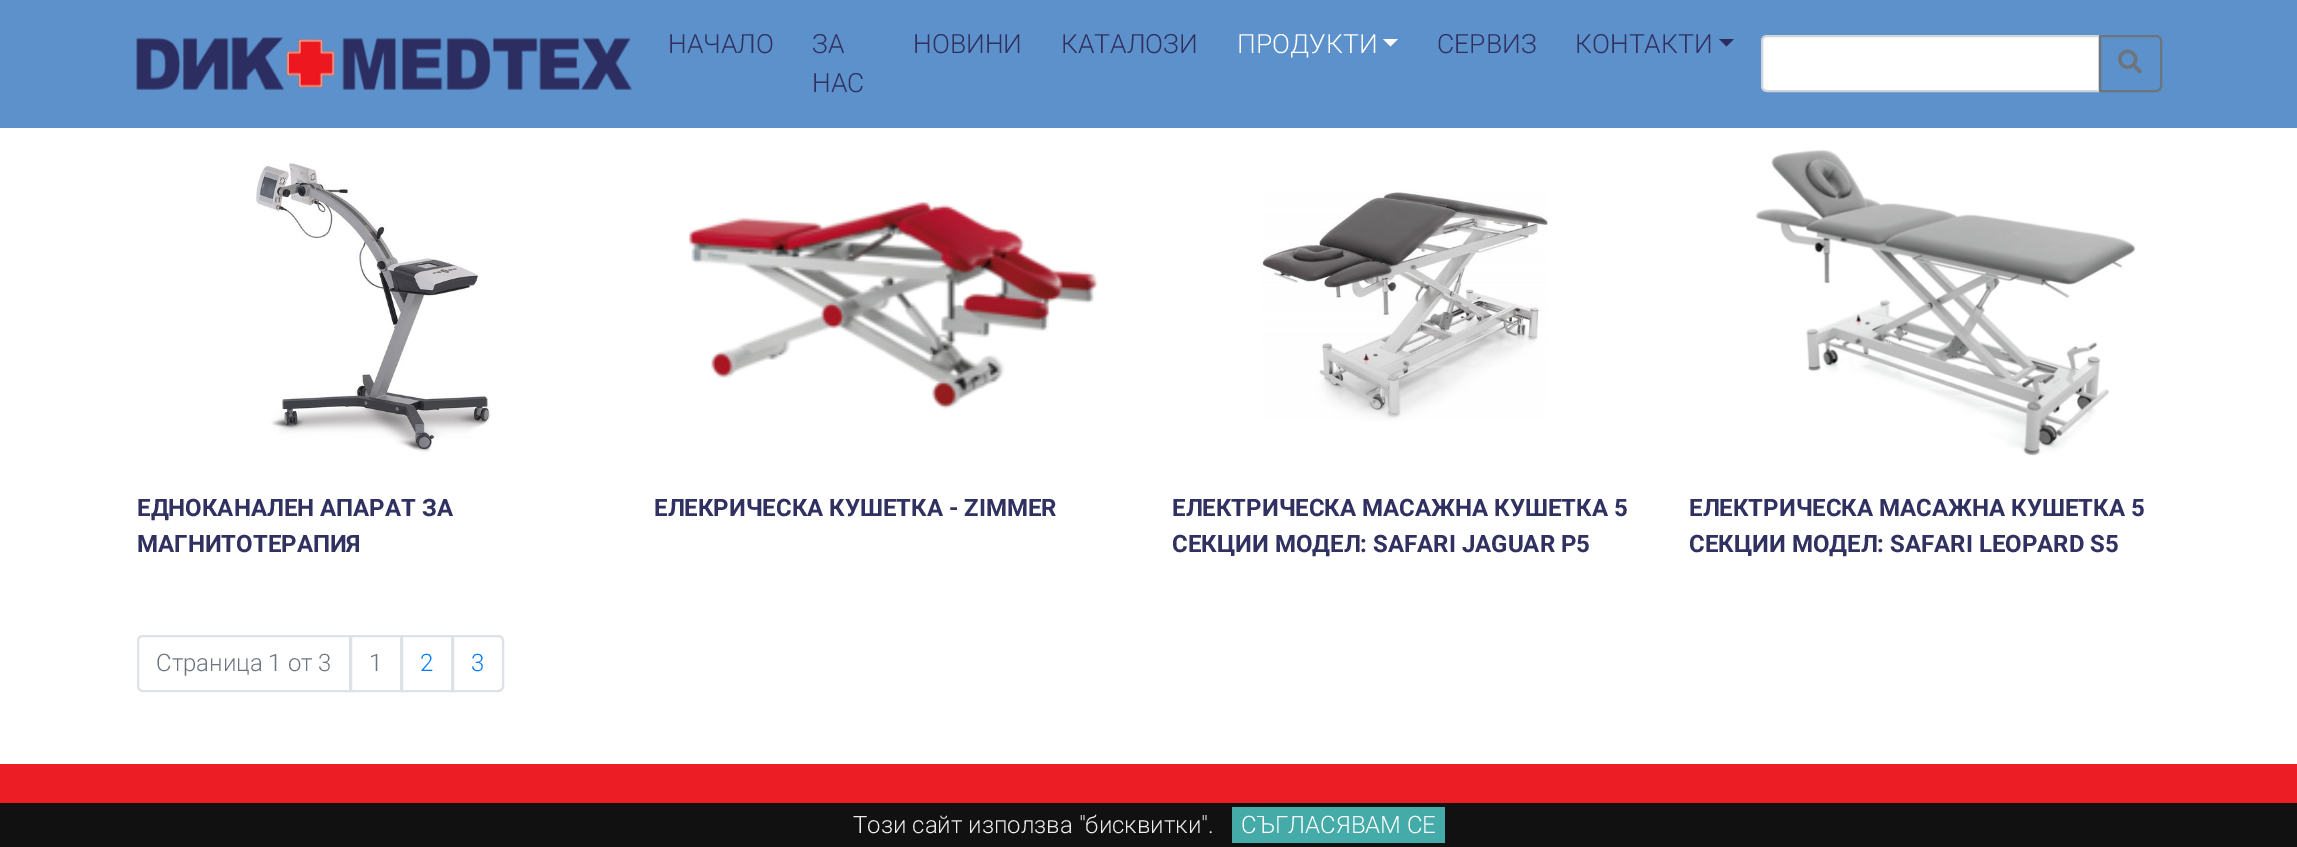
%!PS-Adobe-3.0
%%BoundingBox: 0 0 2297 847
%%LanguageLevel: 3
%%Pages: 1
%%EndComments
%%BeginProlog
/setink { dup -16 bitshift 255 div exch dup -8 bitshift 255 and 255 div exch 255 and 255 div setrgbcolor } def
/usefont { [ exch dup neg 0 0 3 -1 roll 0 0 ] selectfont } def
/drawimage { 5 dict begin { /h /w /y /x /name } { exch def } forall
  gsave x y translate w h scale
  w h 8 [w 0 0 h 0 0] name (r) file false 3 colorimage grestore end } def
%%EndProlog
%%BeginSetup
<< /PageSize [2297 847] >> setpagedevice
%%EndSetup
%%Page: 1 1
0 847 translate 1 -1 scale
4 setmiterlimit
16#FFFFFF setink
0 0 2297 847 rectfill
16#5C91CB setink
0 0 2297 128 rectfill
(img1.raw) 136 37 496 53 drawimage
/Roboto-Light 26.5 usefont
16#303161 setink
[
    [(НАЧАЛО) 668 53]
    [(ЗА) 812 53]
    [(НАС) 812 92]
    [(НОВИНИ) 913 53]
    [(КАТАЛОЗИ) 1061 53]
] { aload pop moveto show } forall
16#FFFFFF setink
1237 53 moveto (ПРОДУКТИ) show
1383 39 moveto 1398 39 lineto 1390.5 46.5 lineto closepath fill
16#303161 setink
1437 53 moveto (СЕРВИЗ) show
1575 53 moveto (КОНТАКТИ) show
16#2E2D5F setink
1719 39 moveto 1734 39 lineto 1726.5 46.5 lineto closepath fill
16#FFFFFF setink
1767 36 moveto 2099 36 lineto 2099 91 lineto 1767 91 lineto 1764 91 1762 89 1762 86 curveto 1762 41 lineto 1762 38 1764 36 1767 36 curveto closepath gsave fill grestore
16#CED4DA setink
2 setlinewidth
stroke
16#6C757D setink
2100 36 moveto 2156 36 lineto 2159 36 2161 38 2161 41 curveto 2161 86 lineto 2161 89 2159 91 2156 91 curveto 2100 91 lineto closepath stroke
(img2.raw) 2118 49 24 25 drawimage
(img3.raw) 256 163 235 289 drawimage
/Roboto-Bold 24 usefont
16#303161 setink
137 516 moveto (ЕДНОКАНАЛЕН АПАРАТ ЗА) show
137 552 moveto (МАГНИТОТЕРАПИЯ) show
(img4.raw) 689 200 409 209 drawimage
654 516 moveto (ЕЛЕКРИЧЕСКА КУШЕТКА - ZIMMER) show
(img5.raw) 1262 191 286 230 drawimage
1172 516 moveto (ЕЛЕКТРИЧЕСКА МАСАЖНА КУШЕТКА 5) show
1172 552 moveto (СЕКЦИИ МОДЕЛ: SAFARI JAGUAR P5) show
(img6.raw) 1755 150 381 306 drawimage
1689 516 moveto (ЕЛЕКТРИЧЕСКА МАСАЖНА КУШЕТКА 5) show
1689 552 moveto (СЕКЦИИ МОДЕЛ: SAFARI LEOPARD S5) show
16#DEE2E6 setink
143 636 moveto 350 636 lineto 350 691 lineto 143 691 lineto 140 691 138 689 138 686 curveto 138 641 lineto 138 638 140 636 143 636 curveto closepath stroke
/Roboto-Light 24 usefont
16#6C757D setink
156 671 moveto (Страница 1 от 3) show
16#DEE2E6 setink
351 636 50 55 rectstroke
16#6C757D setink
369 671 moveto (1) show
16#DEE2E6 setink
402 636 50 55 rectstroke
16#007BFF setink
420 671 moveto (2) show
16#FFFFFF setink
453 636 moveto 498 636 lineto 501 636 503 638 503 641 curveto 503 686 lineto 503 689 501 691 498 691 curveto 453 691 lineto closepath gsave fill grestore
16#DEE2E6 setink
stroke
16#007BFF setink
471 671 moveto (3) show
16#EC1D24 setink
0 764 2297 39 rectfill
16#111111 setink
0 803 2297 44 rectfill
16#EEEEEE setink
853 833 moveto (Този сайт използва "бисквитки".) show
16#45ABA9 setink
1232 807 213 36 rectfill
16#FFFFFF setink
1241 833 moveto (СЪГЛАСЯВАМ СЕ) show
showpage
%%EOF
